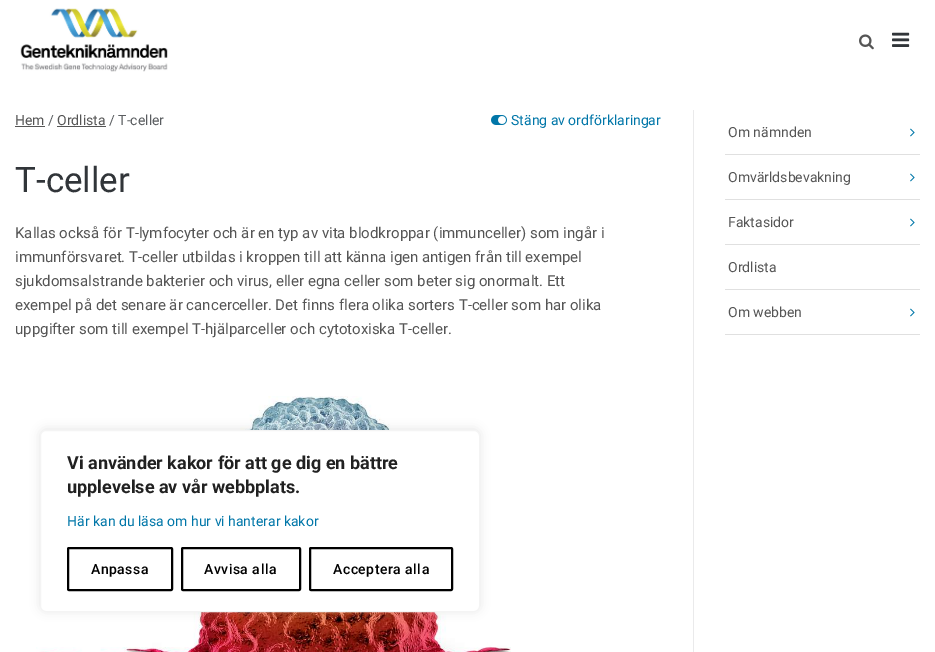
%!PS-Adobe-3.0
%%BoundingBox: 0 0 935 652
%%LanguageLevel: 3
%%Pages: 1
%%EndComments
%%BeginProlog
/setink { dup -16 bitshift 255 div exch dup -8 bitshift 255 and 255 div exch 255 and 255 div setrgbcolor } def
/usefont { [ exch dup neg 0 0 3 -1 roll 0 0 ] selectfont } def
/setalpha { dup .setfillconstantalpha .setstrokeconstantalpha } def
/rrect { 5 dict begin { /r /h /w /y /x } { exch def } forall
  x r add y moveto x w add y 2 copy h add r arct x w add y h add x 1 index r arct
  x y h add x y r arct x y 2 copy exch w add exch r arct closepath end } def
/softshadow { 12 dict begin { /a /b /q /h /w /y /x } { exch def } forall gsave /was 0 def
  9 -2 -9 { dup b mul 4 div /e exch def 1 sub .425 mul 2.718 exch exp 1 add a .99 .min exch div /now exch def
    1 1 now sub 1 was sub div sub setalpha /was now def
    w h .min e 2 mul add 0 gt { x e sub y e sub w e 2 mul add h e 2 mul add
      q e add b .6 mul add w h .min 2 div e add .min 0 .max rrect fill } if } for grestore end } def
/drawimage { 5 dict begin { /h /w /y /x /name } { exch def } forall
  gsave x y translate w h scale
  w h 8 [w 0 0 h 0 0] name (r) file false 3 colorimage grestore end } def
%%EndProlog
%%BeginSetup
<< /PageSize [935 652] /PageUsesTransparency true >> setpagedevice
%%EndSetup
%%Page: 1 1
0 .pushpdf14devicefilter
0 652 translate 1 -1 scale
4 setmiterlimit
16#FFFFFF setink
0 0 935 652 rectfill
(img1.raw) 20 8 148 64 drawimage
(img2.raw) 859 34 15 16 drawimage
(img3.raw) 892 32 18 15 drawimage
16#EAEAEB setink
693 110 1 542 rectfill
/Roboto-Regular 14 usefont
16#555555 setink
15 125 moveto (Hem) show
15 126 30 1 rectfill
16#5A5D60 setink
48 125 moveto (/) show
16#555555 setink
57 125 moveto (Ordlista) show
57 126 49 1 rectfill
16#5A5D60 setink
109 125 moveto (/ T-celler) show
(img4.raw) 491 115 16 10 drawimage
16#0076A8 setink
511 125 moveto (Stäng av ordförklaringar) show
/Roboto-Regular 35 usefont
16#313539 setink
15 192 moveto (T-celler) show
/Roboto-Regular 15 usefont
16#555555 setink
[
    [(Kallas också för T-lymfocyter och är en typ av vita blodkroppar \(immunceller\) som ingår i) 15 238]
    [(immunförsvaret. T-celler utbildas i kroppen till att känna igen antigen från till exempel) 15 262]
    [(sjukdomsalstrande bakterier och virus, eller egna celler som beter sig onormalt. Ett) 15 286]
    [(exempel på det senare är cancerceller. Det finns flera olika sorters T-celler som har olika) 15 310]
    [(uppgifter som till exempel T-hjälparceller och cytotoxiska T-celler.) 15 334]
] { aload pop moveto show } forall
(img5.raw) 36 396 475 256 drawimage
16#E0E0E0 setink
725 154 195 1 rectfill
/Roboto-Regular 14 usefont
16#555555 setink
728 137 moveto (Om nämnden) show
(img6.raw) 910 128 5 9 drawimage
16#E0E0E0 setink
725 199 195 1 rectfill
16#555555 setink
728 182 moveto (Omvärldsbevakning) show
(img6.raw) 910 173 5 9 drawimage
16#E0E0E0 setink
725 244 195 1 rectfill
16#555555 setink
728 227 moveto (Faktasidor) show
(img6.raw) 910 218 5 9 drawimage
16#E0E0E0 setink
725 289 195 1 rectfill
16#555555 setink
728 272 moveto (Ordlista) show
16#E0E0E0 setink
725 334 195 1 rectfill
16#555555 setink
728 317 moveto (Om webben) show
(img6.raw) 910 308 5 9 drawimage
16#ACABAB setink
40 429 440 182 6 5 0.3 softshadow
16#FFFFFF setink
40.5 430.5 439 181 5.5 rrect gsave fill grestore
16#F4F4F4 setink
stroke
/Roboto-Bold 18 usefont
16#212121 setink
67 469 moveto (Vi använder kakor för att ge dig en bättre) show
67 493 moveto (upplevelse av vår webbplats.) show
/Roboto-Regular 14 usefont
16#0076A8 setink
67 526 moveto (Här kan du läsa om hur vi hanterar kakor) show
16#000000 setink
2 setlinewidth
68 548 104 42 1 rrect stroke
/Roboto-Medium 14 usefont
91 574 moveto 0.5 0 (Anpassa) ashow
182 548 118 42 1 rrect stroke
204 574 moveto 0.5 0 (Avvisa alla) ashow
310 548 142 42 1 rrect stroke
333 574 moveto 0.5 0 (Acceptera alla) ashow
.poppdf14devicefilter showpage
%%EOF
